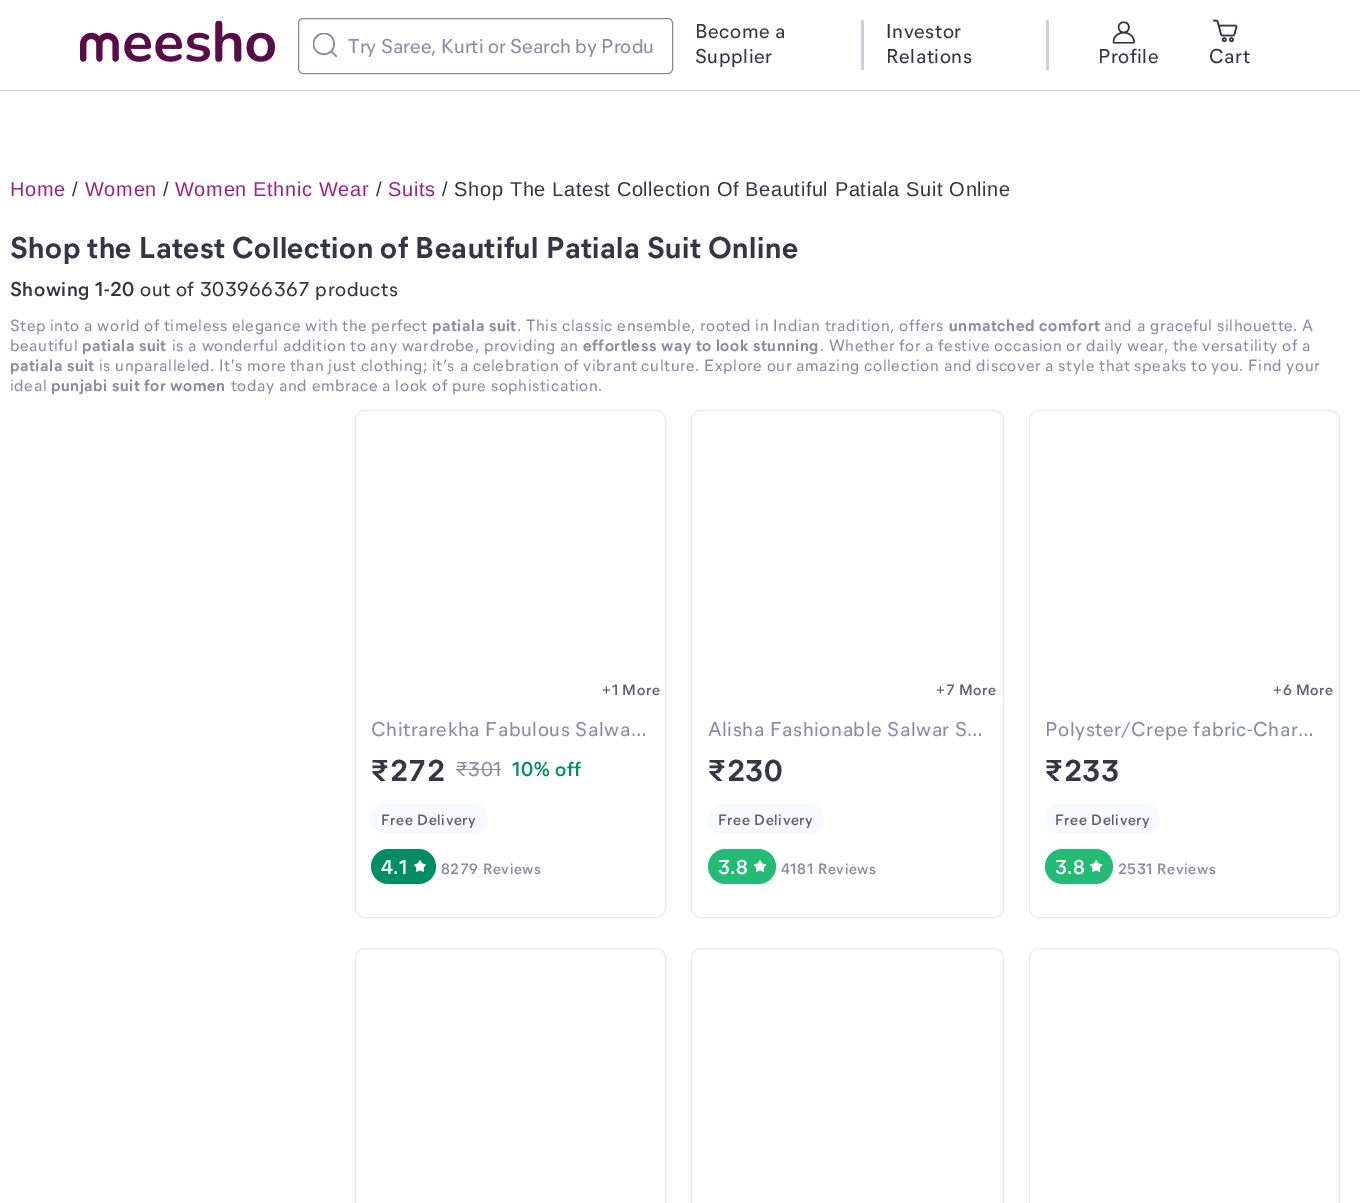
%!PS-Adobe-3.0
%%BoundingBox: 0 0 1360 1203
%%LanguageLevel: 3
%%Pages: 1
%%EndComments
%%BeginProlog
/setink { dup -16 bitshift 255 div exch dup -8 bitshift 255 and 255 div exch 255 and 255 div setrgbcolor } def
/usefont { [ exch dup neg 0 0 3 -1 roll 0 0 ] selectfont } def
/rrect { 5 dict begin { /r /h /w /y /x } { exch def } forall
  x r add y moveto x w add y 2 copy h add r arct x w add y h add x 1 index r arct
  x y h add x y r arct x y 2 copy exch w add exch r arct closepath end } def
/drawimage { 5 dict begin { /h /w /y /x /name } { exch def } forall
  gsave x y translate w h scale
  w h 8 [w 0 0 h 0 0] name (r) file false 3 colorimage grestore end } def
%%EndProlog
%%BeginSetup
<< /PageSize [1360 1203] >> setpagedevice
%%EndSetup
%%Page: 1 1
0 1203 translate 1 -1 scale
4 setmiterlimit
16#FFFFFF setink
0 0 1360 1203 rectfill
(img1.raw) 80 20 195 42 drawimage
16#8B8BA3 setink
298.5 18.5 374 55 4.5 rrect stroke
(img2.raw) 313 33 24 24 drawimage
/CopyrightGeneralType-Medium 20 usefont
348 53 moveto 0.05 0 (Try Saree, Kurti or Search by Produ) ashow
16#353543 setink
695 38 moveto 0.62 0 (Become a) ashow
695 63 moveto 0.62 0 (Supplier) ashow
16#CECEDE setink
861 20 3 50 1.5 rrect fill
16#353543 setink
886 38 moveto 0.62 0 (Investor) ashow
886 63 moveto 0.62 0 (Relations) ashow
16#CECEDE setink
1046 20 3 50 1.5 rrect fill
(img3.raw) 1112 21 23 23 drawimage
16#353543 setink
1098 63 moveto 0.62 0 (Profile) ashow
(img4.raw) 1213 19 25 24 drawimage
1209 63 moveto 0.62 0 (Cart) ashow
16#CECEDE setink
0 90 1360 1 0.5 rrect fill
/LiberationSans-Regular 20 usefont
16#9F2089 setink
10 196 moveto 0.62 0 (Home) ashow
16#353543 setink
72 196 moveto 0.62 0 (/) ashow
16#9F2089 setink
85 196 moveto 0.62 0 (Women) ashow
16#353543 setink
163 196 moveto 0.62 0 (/) ashow
16#9F2089 setink
175 196 moveto 0.62 0 (Women Ethnic Wear) ashow
16#353543 setink
376 196 moveto 0.62 0 (/) ashow
16#9F2089 setink
388 196 moveto 0.62 0 (Suits) ashow
16#353543 setink
442 196 moveto 0.62 0 (/ Shop The Latest Collection Of Beautiful Patiala Suit Online) ashow
/CopyrightGeneralType-Bold 30 usefont
10 258 moveto 0.62 0 (Shop the Latest Collection of Beautiful Patiala Suit Online) ashow
/CopyrightGeneralType-SemiBold 20 usefont
10 296 moveto 0.62 0 (Showing 1-20) ashow
/CopyrightGeneralType-Medium 20 usefont
140 296 moveto 0.62 0 (out of 303966367 products) ashow
/CopyrightGeneralType-Medium 16.25 usefont
16#8B8BA3 setink
10 331 moveto 0.62 0 (Step into a world of timeless elegance with the perfect) ashow
/CopyrightGeneralType-Bold 16.25 usefont
432 331 moveto 0.62 0 (patiala suit) ashow
/CopyrightGeneralType-Medium 16.25 usefont
517 331 moveto 0.62 0 (. This classic ensemble, rooted in Indian tradition, offers) ashow
/CopyrightGeneralType-Bold 16.25 usefont
949 331 moveto 0.62 0 (unmatched comfort) ashow
/CopyrightGeneralType-Medium 16.25 usefont
1104 331 moveto 0.62 0 (and a graceful silhouette. A) ashow
10 351 moveto 0.62 0 (beautiful) ashow
/CopyrightGeneralType-Bold 16.25 usefont
82 351 moveto 0.62 0 (patiala suit) ashow
/CopyrightGeneralType-Medium 16.25 usefont
172 351 moveto 0.62 0 (is a wonderful addition to any wardrobe, providing an) ashow
/CopyrightGeneralType-Bold 16.25 usefont
583 351 moveto 0.62 0 (effortless way to look stunning) ashow
/CopyrightGeneralType-Medium 16.25 usefont
820 351 moveto 0.62 0 (. Whether for a festive occasion or daily wear, the versatility of a) ashow
/CopyrightGeneralType-Bold 16.25 usefont
10 371 moveto 0.62 0 (patiala suit) ashow
/CopyrightGeneralType-Medium 16.25 usefont
99 371 moveto 0.62 0 (is unparalleled. It's more than just clothing; it’s a celebration of vibrant culture. Explore our amazing collection and discover a style that speaks to you. Find your) ashow
10 391 moveto 0.62 0 (ideal) ashow
/CopyrightGeneralType-Bold 16.25 usefont
51 391 moveto 0.62 0 (punjabi suit for women) ashow
/CopyrightGeneralType-Medium 16.25 usefont
231 391 moveto 0.62 0 (today and embrace a look of pure sophistication.) ashow
16#EAEAF2 setink
355.5 410.5 310 507 9.5 rrect stroke
/CopyrightGeneralType-SemiBold 15 usefont
16#616173 setink
602 695 moveto 0.62 0 (+1 More) ashow
/CopyrightGeneralType-Medium 20 usefont
16#8B8BA3 setink
371 736 moveto 0.62 0 (Chitrarekha Fabulous Salwa…) ashow
/CopyrightGeneralType-Bold 30 usefont
16#353543 setink
371 781 moveto 0.62 0 (₹272) ashow
/CopyrightGeneralType-Medium 20 usefont
16#8B8BA3 setink
456 776 moveto 0.62 0 (₹301) ashow
456 769 45 1 rectfill
/CopyrightGeneralType-SemiBold 20 usefont
16#038D63 setink
512 776 moveto 0.62 0 (10% off) ashow
16#F8F8FF setink
371 804 117 30 15 rrect fill
/CopyrightGeneralType-SemiBold 15 usefont
16#616173 setink
381 825 moveto 0.62 0 (Free Delivery) ashow
16#038D63 setink
371 849 65 35 17.5 rrect fill
/CopyrightGeneralType-SemiBold 20 usefont
16#FFFFFF setink
381 874 moveto 0.62 0 (4.1) ashow
(img5.raw) 414 860 12 12 drawimage
/CopyrightGeneralType-SemiBold 15 usefont
16#8B8BA3 setink
441 874 moveto 0.62 0 (8279 Reviews) ashow
16#EAEAF2 setink
691.5 410.5 312 507 9.5 rrect stroke
16#616173 setink
936 695 moveto 0.62 0 (+7 More) ashow
/CopyrightGeneralType-Medium 20 usefont
16#8B8BA3 setink
708 736 moveto 0.62 0 (Alisha Fashionable Salwar S…) ashow
/CopyrightGeneralType-Bold 30 usefont
16#353543 setink
708 781 moveto 0.62 0 (₹230) ashow
16#F8F8FF setink
708 804 116 30 15 rrect fill
/CopyrightGeneralType-SemiBold 15 usefont
16#616173 setink
718 825 moveto 0.62 0 (Free Delivery) ashow
16#23BB75 setink
708 849 68 35 17.5 rrect fill
/CopyrightGeneralType-SemiBold 20 usefont
16#FFFFFF setink
718 874 moveto 0.62 0 (3.8) ashow
(img6.raw) 754 860 12 12 drawimage
/CopyrightGeneralType-SemiBold 15 usefont
16#8B8BA3 setink
781 874 moveto 0.62 0 (4181 Reviews) ashow
16#EAEAF2 setink
1029.5 410.5 310 507 9.5 rrect stroke
16#616173 setink
1273 695 moveto 0.62 0 (+6 More) ashow
/CopyrightGeneralType-Medium 20 usefont
16#8B8BA3 setink
1045 736 moveto 0.62 0 (Polyster/Crepe fabric-Char…) ashow
/CopyrightGeneralType-Bold 30 usefont
16#353543 setink
1045 781 moveto 0.62 0 (₹233) ashow
16#F8F8FF setink
1045 804 115 30 15 rrect fill
/CopyrightGeneralType-SemiBold 15 usefont
16#616173 setink
1055 825 moveto 0.62 0 (Free Delivery) ashow
16#23BB75 setink
1045 849 68 35 17.5 rrect fill
/CopyrightGeneralType-SemiBold 20 usefont
16#FFFFFF setink
1055 874 moveto 0.62 0 (3.8) ashow
(img7.raw) 1090 860 13 12 drawimage
/CopyrightGeneralType-SemiBold 15 usefont
16#8B8BA3 setink
1118 874 moveto 0.62 0 (2531 Reviews) ashow
16#EAEAF2 setink
355.5 948.5 310 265 9.5 rrect stroke
691.5 948.5 312 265 9.5 rrect stroke
1029.5 948.5 310 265 9.5 rrect stroke
showpage
%%EOF
